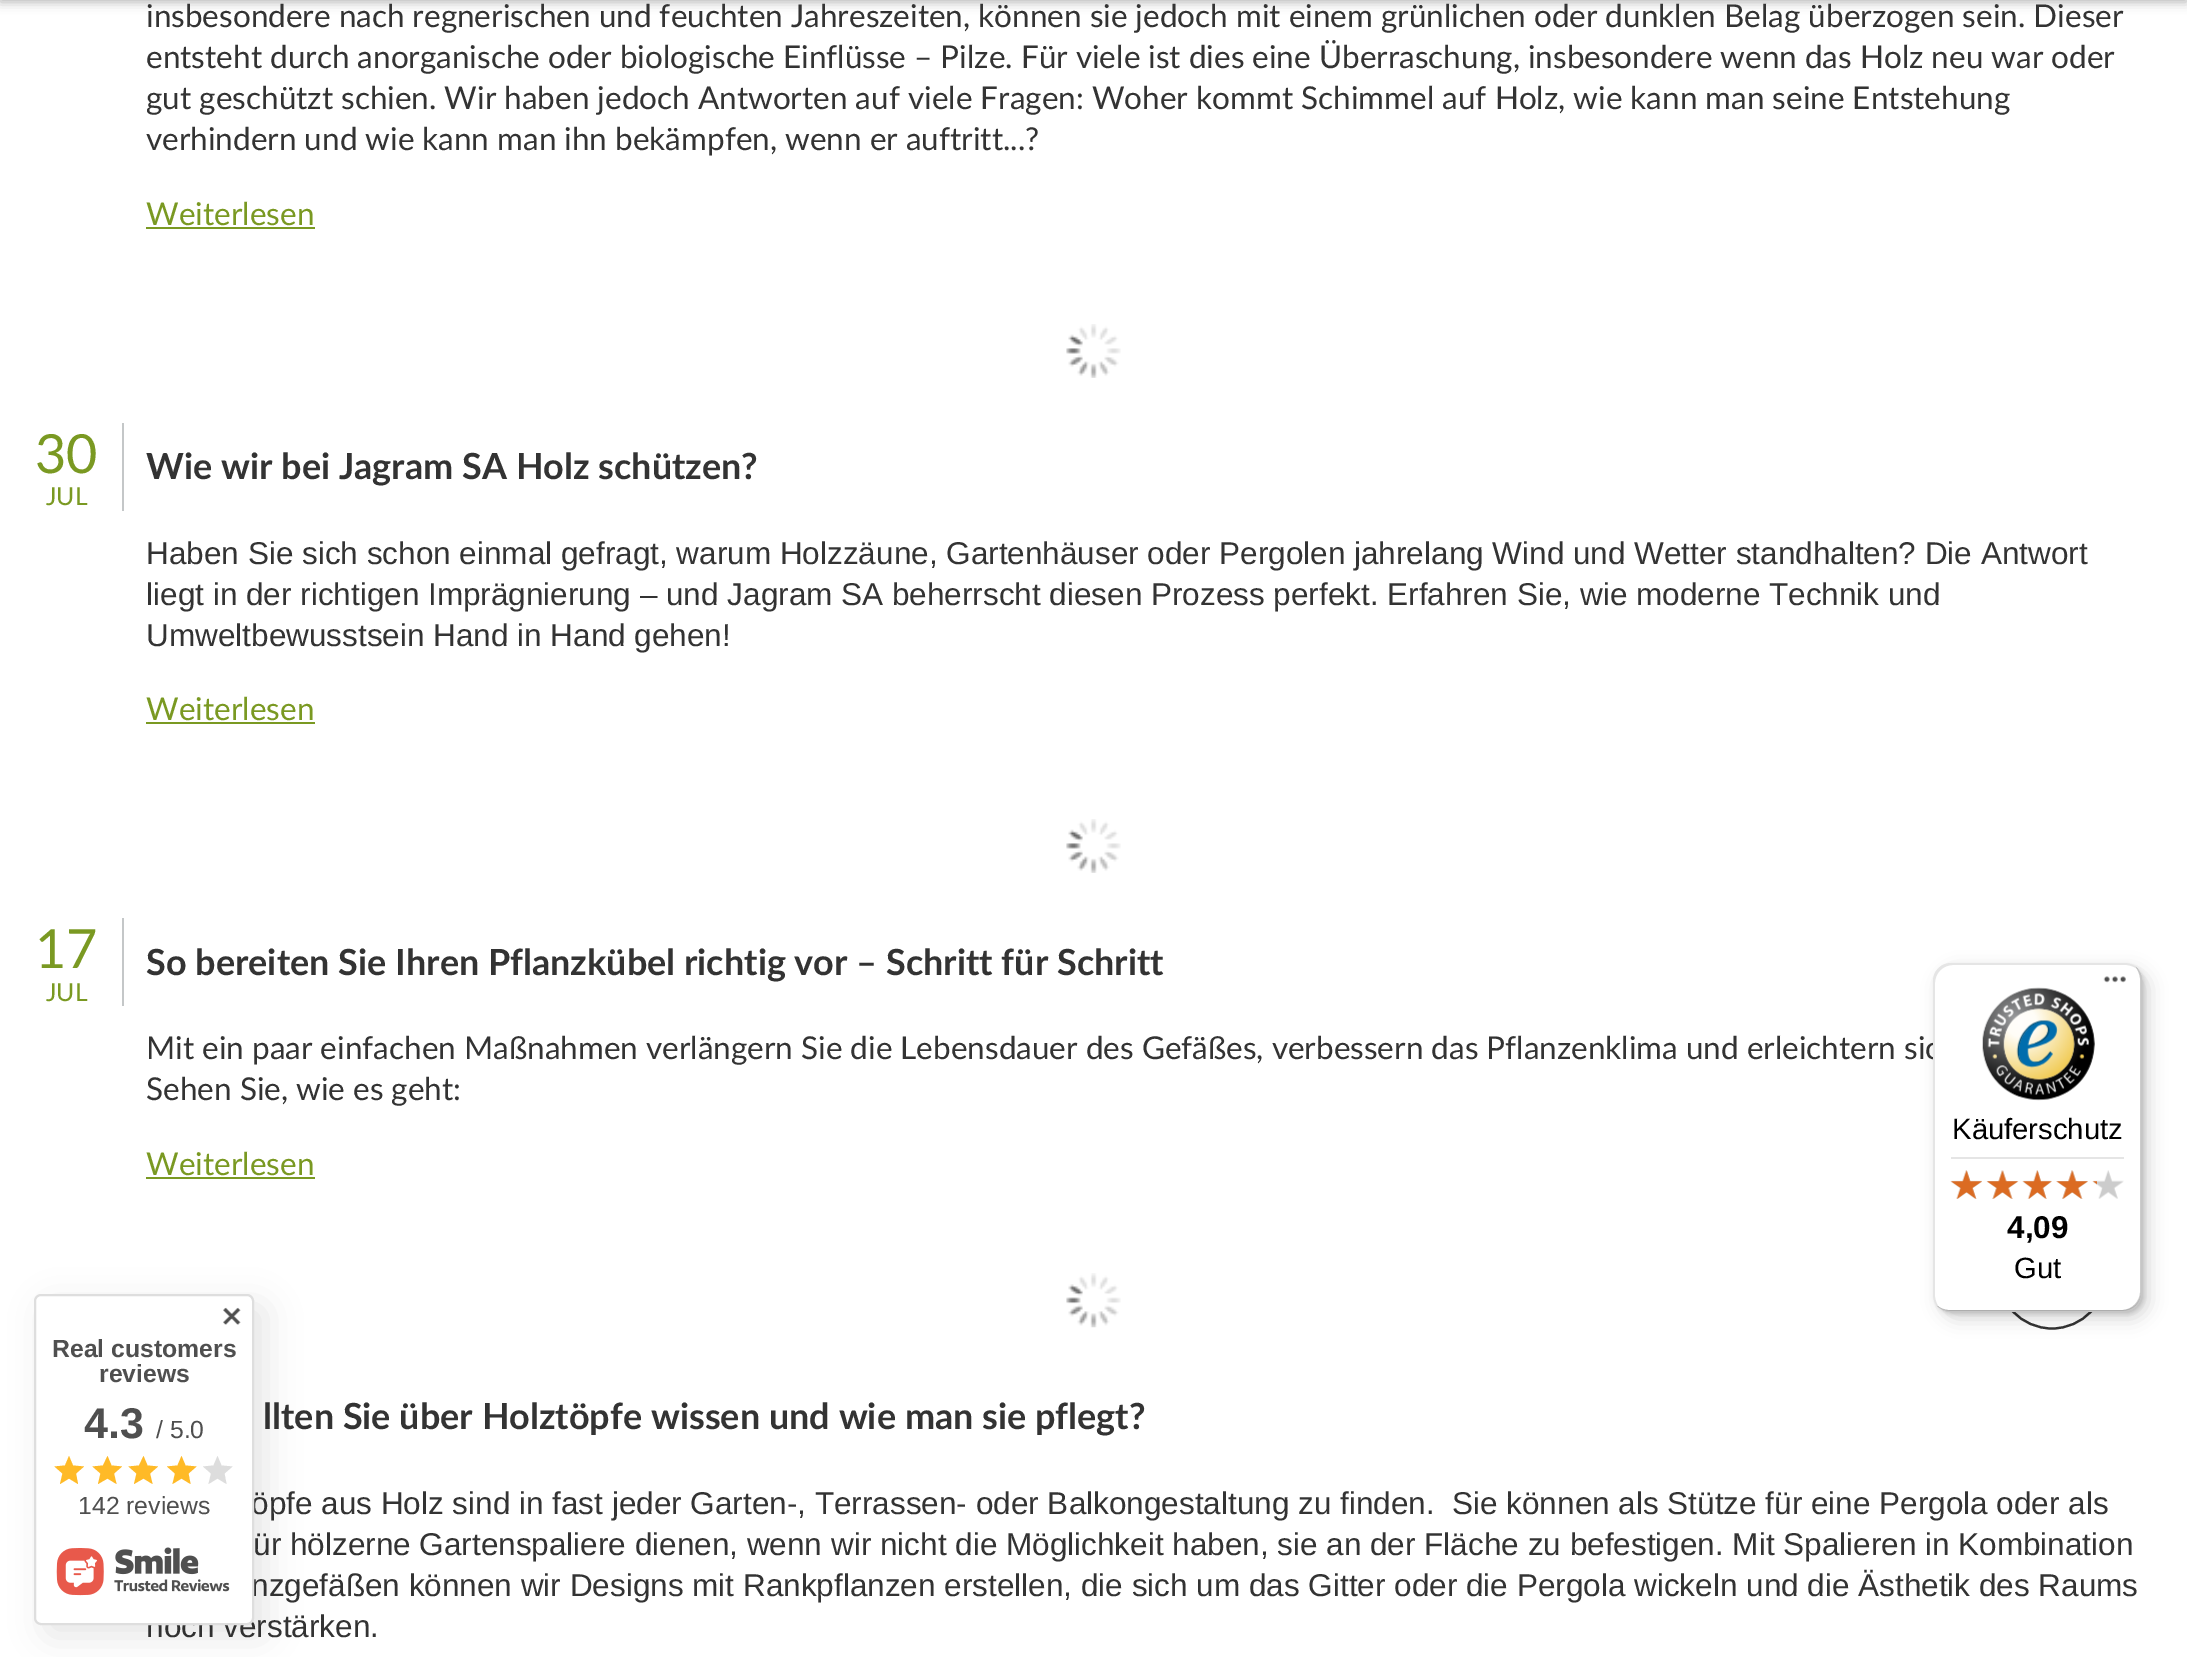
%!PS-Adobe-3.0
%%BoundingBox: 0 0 2187 1657
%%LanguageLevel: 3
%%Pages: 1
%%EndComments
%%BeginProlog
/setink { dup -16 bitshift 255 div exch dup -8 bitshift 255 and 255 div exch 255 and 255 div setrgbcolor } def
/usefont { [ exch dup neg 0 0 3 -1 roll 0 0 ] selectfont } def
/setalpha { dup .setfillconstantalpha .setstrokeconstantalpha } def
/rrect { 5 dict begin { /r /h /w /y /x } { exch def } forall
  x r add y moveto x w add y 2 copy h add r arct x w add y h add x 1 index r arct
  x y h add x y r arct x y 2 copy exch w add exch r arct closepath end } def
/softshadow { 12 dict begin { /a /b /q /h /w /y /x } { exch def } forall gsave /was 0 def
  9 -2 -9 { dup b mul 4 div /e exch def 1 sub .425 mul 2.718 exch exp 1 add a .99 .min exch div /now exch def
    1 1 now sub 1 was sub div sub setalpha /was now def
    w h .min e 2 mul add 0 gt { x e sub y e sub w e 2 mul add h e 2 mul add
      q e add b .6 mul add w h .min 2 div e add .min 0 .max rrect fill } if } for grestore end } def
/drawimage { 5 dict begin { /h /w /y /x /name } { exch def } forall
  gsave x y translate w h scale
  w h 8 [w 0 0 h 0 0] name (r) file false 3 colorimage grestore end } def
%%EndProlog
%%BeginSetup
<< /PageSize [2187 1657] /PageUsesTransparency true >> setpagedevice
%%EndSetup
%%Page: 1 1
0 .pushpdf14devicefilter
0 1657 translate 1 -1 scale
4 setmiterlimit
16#FFFFFF setink
0 0 2187 1657 rectfill
16#000000 setink
0 -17 2187 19 0 5.5 0.3 softshadow
/Lato-Regular 31.5 usefont
16#333333 setink
[
    [(insbesondere nach regnerischen und feuchten Jahreszeiten, können sie jedoch mit einem grünlichen oder dunklen Belag überzogen sein. Dieser) 146 27]
    [(entsteht durch anorganische oder biologische Einflüsse – Pilze. Für viele ist dies eine Überraschung, insbesondere wenn das Holz neu war oder) 146 68]
    [(gut geschützt schien. Wir haben jedoch Antworten auf viele Fragen: Woher kommt Schimmel auf Holz, wie kann man seine Entstehung) 146 109]
    [(verhindern und wie kann man ihn bekämpfen, wenn er auftritt...?) 146 150]
] { aload pop moveto show } forall
16#7A9922 setink
146 225 moveto (Weiterlesen) show
146 227 169 2 rectfill
(img1.raw) 1066 324 55 54 drawimage
16#C4C7C8 setink
122 423 2 88 rectfill
/Lato-Regular 54 usefont
16#7A9922 setink
35 473 moveto (30) show
/Lato-Regular 24.75 usefont
46 505 moveto (JUL) show
/Lato-Bold 36 usefont
16#333333 setink
146 479 moveto (Wie wir bei Jagram SA Holz schützen?) show
/LiberationSans-Regular 31.5 usefont
[
    [(Haben Sie sich schon einmal gefragt, warum Holzzäune, Gartenhäuser oder Pergolen jahrelang Wind und Wetter standhalten? Die Antwort) 146 564]
    [(liegt in der richtigen Imprägnierung – und Jagram SA beherrscht diesen Prozess perfekt. Erfahren Sie, wie moderne Technik und) 146 605]
    [(Umweltbewusstsein Hand in Hand gehen!) 146 646]
] { aload pop moveto show } forall
/Lato-Regular 31.5 usefont
16#7A9922 setink
146 720 moveto (Weiterlesen) show
146 722 169 2 rectfill
(img1.raw) 1066 819 55 54 drawimage
16#C4C7C8 setink
122 918 2 88 rectfill
/Lato-Regular 54 usefont
16#7A9922 setink
35 968 moveto (17) show
/Lato-Regular 24.75 usefont
46 1001 moveto (JUL) show
/Lato-Bold 36 usefont
16#333333 setink
146 975 moveto (So bereiten Sie Ihren Pflanzkübel richtig vor – Schritt für Schritt) show
/Lato-Regular 31.5 usefont
146 1059 moveto (Mit ein paar einfachen Maßnahmen verlängern Sie die Lebensdauer des Gefäßes, verbessern das Pflanzenklima und erleichtern sic) show
146 1100 moveto (Sehen Sie, wie es geht:) show
16#7A9922 setink
146 1175 moveto (Weiterlesen) show
146 1177 169 2 rectfill
(img2.raw) 1066 1273 55 55 drawimage
/Lato-Bold 36 usefont
16#333333 setink
263 1429 moveto (llten Sie über Holztöpfe wissen und wie man sie pflegt?) show
/LiberationSans-Regular 31.5 usefont
[
    [(öpfe aus Holz sind in fast jeder Garten-, Terrassen- oder Balkongestaltung zu finden.  Sie können als Stütze für eine Pergola oder als) 251 1514]
    [(ür hölzerne Gartenspaliere dienen, wenn wir nicht die Möglichkeit haben, sie an der Fläche zu befestigen. Mit Spalieren in Kombination) 253 1555]
    [(nzgefäßen können wir Designs mit Rankpflanzen erstellen, die sich um das Gitter oder die Pergola wickeln und die Ästhetik des Raums) 251 1596]
    [(noch verstärken.) 146 1637]
] { aload pop moveto show } forall
2.2 setlinewidth
2052 1214 moveto 2082.5 1214 2107 1239.5 2107 1271 curveto 2107 1303 2082.5 1328.5 2052 1328.5 curveto 2021.5 1328.5 1997 1303 1997 1271 curveto 1997 1239.5 2021.5 1214 2052 1214 curveto closepath stroke
16#000000 setink
1940 970 209 349 18 9 0.15 softshadow
1935 965 209 349 18 2 0.15 softshadow
16#FFFFFF setink
1933 963 209 349 18 rrect fill
0.1 setalpha
16#000000 setink
1953 965 moveto 2126 965 lineto 2130 965 2134 967 2138 969 curveto 2134 965 2129 963 2124 963 curveto 1951 963 lineto 1941 963 1933 971 1933 981 curveto 1933 1294 lineto 1933 1299 1935 1304 1939 1308 curveto 1937 1304 1935 1300 1935 1296 curveto 1935 983 lineto 1935 973 1943 965 1953 965 curveto closepath fill
0.2 setalpha
1938 1306 moveto 1941 1310 1946 1312 1951 1312 curveto 2124 1312 lineto 2134 1312 2142 1304 2142 1294 curveto 2142 981 lineto 2142 976 2140 971 2136 967 curveto 2138 971 2140 975 2140 979 curveto 2140 1292 lineto 2140 1301 2132 1310 2122 1310 curveto 1948 1310 lineto 1944 1310 1941 1309 1938 1306 curveto closepath fill
16#323232 setink
1937 1306 moveto 1941 1310 1946 1312 1951 1312 curveto 2124 1312 lineto 2134 1312 2142 1304 2142 1294 curveto 2142 981 lineto 2142 976 2140 971 2137 968 curveto 2139 971 2141 975 2141 980 curveto 2141 1292 lineto 2141 1302 2133 1310 2123 1310 curveto 1949 1310 lineto 1945 1310 1941 1308 1937 1306 curveto closepath fill
0.3 setalpha
16#FFFFFF setink
1938 1307 moveto 1941 1310 1946 1312 1951 1312 curveto 2124 1312 lineto 2134 1312 2142 1304 2142 1294 curveto 2142 981 lineto 2142 976 2140 971 2137 968 curveto 2139 971 2141 975 2141 980 curveto 2141 1293 lineto 2141 1303 2133 1311 2123 1311 curveto 1950 1311 lineto 1945 1311 1941 1309 1938 1307 curveto closepath fill
1 setalpha
(img3.raw) 2103 976 23 7 drawimage
(img4.raw) 1982 987 113 114 drawimage
/LiberationSans-Regular 29.25 usefont
16#000000 setink
1952 1139 moveto (Käuferschutz) show
16#E5E5E5 setink
1951 1157 173 2 rectfill
(img10.raw) 1951 1170 31 29 drawimage
(img5.raw) 1950 1170 32 29 drawimage
(img11.raw) 1987 1170 31 29 drawimage
(img6.raw) 1986 1170 33 29 drawimage
(img12.raw) 2023 1170 29 29 drawimage
(img7.raw) 2022 1170 30 29 drawimage
(img13.raw) 2056 1170 32 29 drawimage
(img8.raw) 2056 1170 32 29 drawimage
(img14.raw) 2093 1170 31 29 drawimage
(img9.raw) 2092 1181 5 4 drawimage
/LiberationSans-Bold 31.5 usefont
16#000000 setink
2007 1238 moveto (4,09) show
/LiberationSans-Regular 29.25 usefont
2014 1278 moveto (Gut) show
45 1305 221 331 7 17 0.1 softshadow
16#FFFFFF setink
35 1295 218 329 6 rrect gsave fill grestore
16#DEDEDE setink
2 setlinewidth
stroke
(img15.raw) 223 1307 18 18 drawimage
/LiberationSans-Bold 24.75 usefont
16#4F4F4F setink
52 1357 moveto (Real customers) show
99 1382 moveto (reviews) show
/LiberationSans-Bold 43 usefont
84 1438 moveto (4.3) show
/LiberationSans-Regular 24.75 usefont
156 1438 moveto (/ 5.0) show
16#FFBA27 setink
60 1484 moveto 62.5 1473.5 lineto 54.5 1466.5 lineto 65 1465.5 lineto 69 1456 lineto 73 1465.5 lineto 84 1466.5 lineto 76 1473.5 lineto 78 1484 lineto 69 1478.5 lineto closepath fill
98 1484 moveto 100.5 1473.5 lineto 92.5 1466.5 lineto 103 1465.5 lineto 107.5 1456 lineto 111.5 1465.5 lineto 122 1466.5 lineto 114 1473.5 lineto 116.5 1484 lineto 107.5 1478.5 lineto closepath fill
134 1484 moveto 136.5 1473.5 lineto 128.5 1466.5 lineto 139 1465.5 lineto 143.5 1456 lineto 147.5 1465.5 lineto 158 1466.5 lineto 150 1473.5 lineto 152.5 1484 lineto 143.5 1478.5 lineto closepath fill
172.5 1484 moveto 175 1473.5 lineto 167 1466.5 lineto 177.5 1465.5 lineto 181.5 1456 lineto 185.5 1465.5 lineto 196.5 1466.5 lineto 188.5 1473.5 lineto 190.5 1484 lineto 181.5 1478.5 lineto closepath fill
16#DDDDDD setink
208.5 1484 moveto 211 1473.5 lineto 203 1466.5 lineto 213.5 1465.5 lineto 217.5 1456 lineto 221.5 1465.5 lineto 232.5 1466.5 lineto 224.5 1473.5 lineto 226.5 1484 lineto 217.5 1478.5 lineto closepath fill
16#4F4F4F setink
78 1514 moveto (142 reviews) show
(img16.raw) 56 1547 174 49 drawimage
.poppdf14devicefilter showpage
%%EOF
